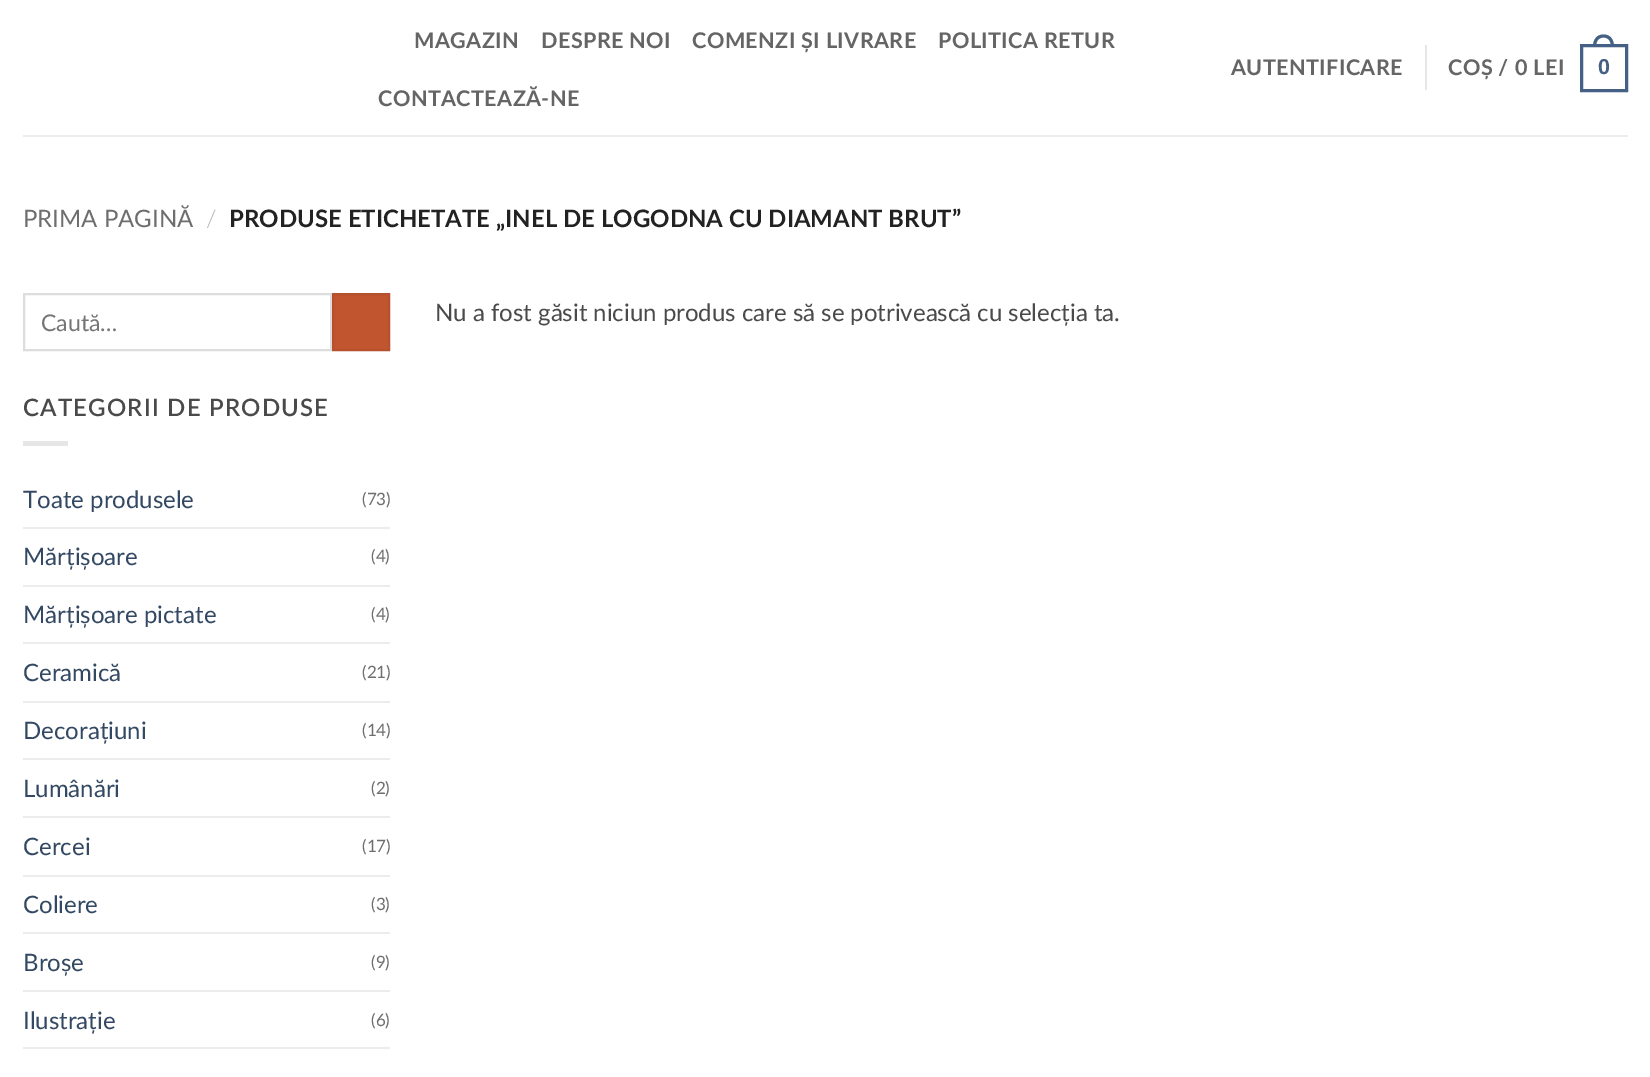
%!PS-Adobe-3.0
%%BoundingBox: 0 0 1650 1077
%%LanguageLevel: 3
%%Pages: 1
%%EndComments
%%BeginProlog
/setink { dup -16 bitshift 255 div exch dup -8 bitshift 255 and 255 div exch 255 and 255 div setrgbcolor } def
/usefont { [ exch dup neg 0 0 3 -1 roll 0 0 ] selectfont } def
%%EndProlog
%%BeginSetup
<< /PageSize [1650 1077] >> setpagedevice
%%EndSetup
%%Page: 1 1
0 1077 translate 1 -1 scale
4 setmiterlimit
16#FFFFFF setink
0 0 1650 1077 rectfill
/Lato-Bold 21.6 usefont
16#656565 setink
414 48 moveto 0.4 0 (MAGAZIN) ashow
541 48 moveto 0.4 0 (DESPRE NOI) ashow
692 48 moveto 0.4 0 (COMENZI ȘI LIVRARE) ashow
938 48 moveto 0.4 0 (POLITICA RETUR) ashow
378 106 moveto 0.4 0 (CONTACTEAZĂ-NE) ashow
1231 75 moveto 0.4 0 (AUTENTIFICARE) ashow
16#E6E6E6 setink
1425 45 2 45 rectfill
16#656565 setink
1448 75 moveto 0.4 0 (COȘ / 0 LEI) ashow
16#446084 setink
3 setlinewidth
1581.5 45.5 45 45 rectstroke
1603.5 34.5 moveto 1610.5 34.5 1614 40 1614 46.5 curveto 1593 46.5 lineto 1593 40 1596.5 34.5 1603.5 34.5 curveto closepath 1603.5 37.5 moveto 1609 37.5 1611 42 1611 46.5 curveto 1596 46.5 lineto 1596 42 1598 37.5 1603.5 37.5 curveto closepath eofill
/LiberationSans-Bold 21.6 usefont
1598 74 moveto 0.4 0 (0) ashow
16#EDEDED setink
23 135 1605 2 rectfill
/Lato-Regular 24 usefont
16#6E6E6E setink
23 227 moveto (PRIMA PAGINĂ) show
/Lato-Light 24 usefont
16#B2B2B2 setink
206 227 moveto (/) show
/Lato-Bold 24 usefont
16#222222 setink
229 227 moveto (PRODUSE ETICHETATE „INEL DE LOGODNA CU DIAMANT BRUT”) show
16#DDDDDD setink
2 setlinewidth
24 294 307 56 rectstroke
/Lato-Regular 23 usefont
16#757575 setink
41 331 moveto (Caută…) show
16#C05530 setink
333 294 moveto 389 294 lineto 389 350 lineto 333 350 lineto closepath gsave fill grestore
16#B6512E setink
stroke
/Lato-SemiBold 24 usefont
16#4A4A4A setink
23 416 moveto 1.2 0 (CATEGORII DE PRODUSE) ashow
16#E6E6E6 setink
23 441 45 5 rectfill
/Lato-Regular 24 usefont
16#334862 setink
23 508 moveto (Toate produsele) show
/Lato-Regular 17 usefont
16#6E6E6E setink
362 505 moveto (\(73\)) show
16#ECECEC setink
23 527 367 2 rectfill
/Lato-Regular 24 usefont
16#334862 setink
23 565 moveto (Mărțișoare) show
/Lato-Regular 17 usefont
16#6E6E6E setink
371 562 moveto (\(4\)) show
16#ECECEC setink
23 585 367 2 rectfill
/Lato-Regular 24 usefont
16#334862 setink
23 623 moveto (Mărțișoare pictate) show
/Lato-Regular 17 usefont
16#6E6E6E setink
371 620 moveto (\(4\)) show
16#ECECEC setink
23 642 367 2 rectfill
/Lato-Regular 24 usefont
16#334862 setink
23 681 moveto (Ceramică) show
/Lato-Regular 17 usefont
16#6E6E6E setink
362 678 moveto (\(21\)) show
16#ECECEC setink
23 701 367 2 rectfill
/Lato-Regular 24 usefont
16#334862 setink
23 739 moveto (Decorațiuni) show
/Lato-Regular 17 usefont
16#6E6E6E setink
362 736 moveto (\(14\)) show
16#ECECEC setink
23 758 367 2 rectfill
/Lato-Regular 24 usefont
16#334862 setink
23 797 moveto (Lumânări) show
/Lato-Regular 17 usefont
16#6E6E6E setink
371 794 moveto (\(2\)) show
16#ECECEC setink
23 816 367 2 rectfill
/Lato-Regular 24 usefont
16#334862 setink
23 855 moveto (Cercei) show
/Lato-Regular 17 usefont
16#6E6E6E setink
362 852 moveto (\(17\)) show
16#ECECEC setink
23 875 367 2 rectfill
/Lato-Regular 24 usefont
16#334862 setink
23 913 moveto (Coliere) show
/Lato-Regular 17 usefont
16#6E6E6E setink
371 910 moveto (\(3\)) show
16#ECECEC setink
23 932 367 2 rectfill
/Lato-Regular 24 usefont
16#334862 setink
23 971 moveto (Broșe) show
/Lato-Regular 17 usefont
16#6E6E6E setink
371 968 moveto (\(9\)) show
16#ECECEC setink
23 990 367 2 rectfill
/Lato-Regular 24 usefont
16#334862 setink
23 1029 moveto (Ilustrație) show
/Lato-Regular 17 usefont
16#6E6E6E setink
371 1026 moveto (\(6\)) show
16#ECECEC setink
23 1047 367 2 rectfill
/Lato-Regular 24 usefont
16#4A4A4A setink
435 321 moveto (Nu a fost găsit niciun produs care să se potrivească cu selecția ta.) show
showpage
%%EOF
